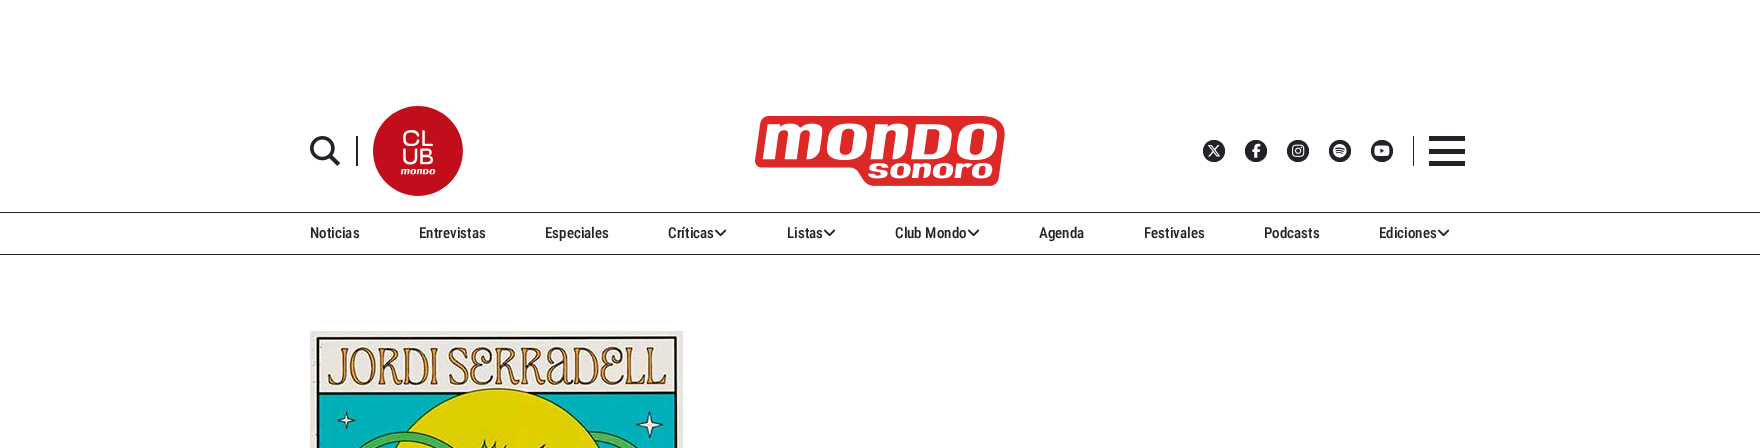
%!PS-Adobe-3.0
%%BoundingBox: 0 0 1760 448
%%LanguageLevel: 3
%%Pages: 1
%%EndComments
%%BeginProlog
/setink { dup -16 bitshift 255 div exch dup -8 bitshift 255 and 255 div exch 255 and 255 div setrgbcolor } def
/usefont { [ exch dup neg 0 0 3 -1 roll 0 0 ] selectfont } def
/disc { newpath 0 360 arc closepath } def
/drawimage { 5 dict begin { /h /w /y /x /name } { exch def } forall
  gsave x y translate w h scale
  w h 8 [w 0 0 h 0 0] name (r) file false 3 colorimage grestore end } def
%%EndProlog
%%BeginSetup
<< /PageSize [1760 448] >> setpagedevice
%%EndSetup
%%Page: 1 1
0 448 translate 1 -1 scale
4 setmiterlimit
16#FFFFFF setink
0 0 1760 448 rectfill
16#222328 setink
0 212 1760 1 rectfill
356 136 2 30 rectfill
(img1.raw) 310 136 31 30 drawimage
(img2.raw) 373 106 90 90 drawimage
(img3.raw) 755 116 250 70 drawimage
1214 151 11 disc fill
(img4.raw) 1207 145 14 12 drawimage
1256 151 11 disc fill
(img5.raw) 1252 143 9 15 drawimage
1298 151 11 disc fill
(img6.raw) 1292 144 13 13 drawimage
1340 151 11 disc fill
(img7.raw) 1333 144 14 14 drawimage
1382 151 11 disc fill
(img8.raw) 1374 145 16 11 drawimage
[
    [1413 136 1 30 16#222328]
    [1429 136 36 5 16#222328]
    [1429 149 36 5 16#222328]
    [1429 161 36 5 16#222328]
    [0 254 1760 1 16#222328]
] { aload pop setink rectfill } forall
/RobotoCondensed-Medium 15 usefont
[
    [(Noticias) 310 238]
    [(Entrevistas) 419 238]
    [(Especiales) 545 238]
    [(Críticas) 668 238]
] { aload pop moveto show } forall
(img9.raw) 715 229 12 8 drawimage
787 238 moveto (Listas) show
(img9.raw) 824 229 12 8 drawimage
895 238 moveto (Club Mondo) show
(img9.raw) 968 229 12 8 drawimage
[
    [(Agenda) 1039 238]
    [(Festivales) 1144 238]
    [(Podcasts) 1264 238]
    [(Ediciones) 1379 238]
] { aload pop moveto show } forall
(img9.raw) 1438 229 12 8 drawimage
(img10.raw) 310 331 373 117 drawimage
showpage
%%EOF
